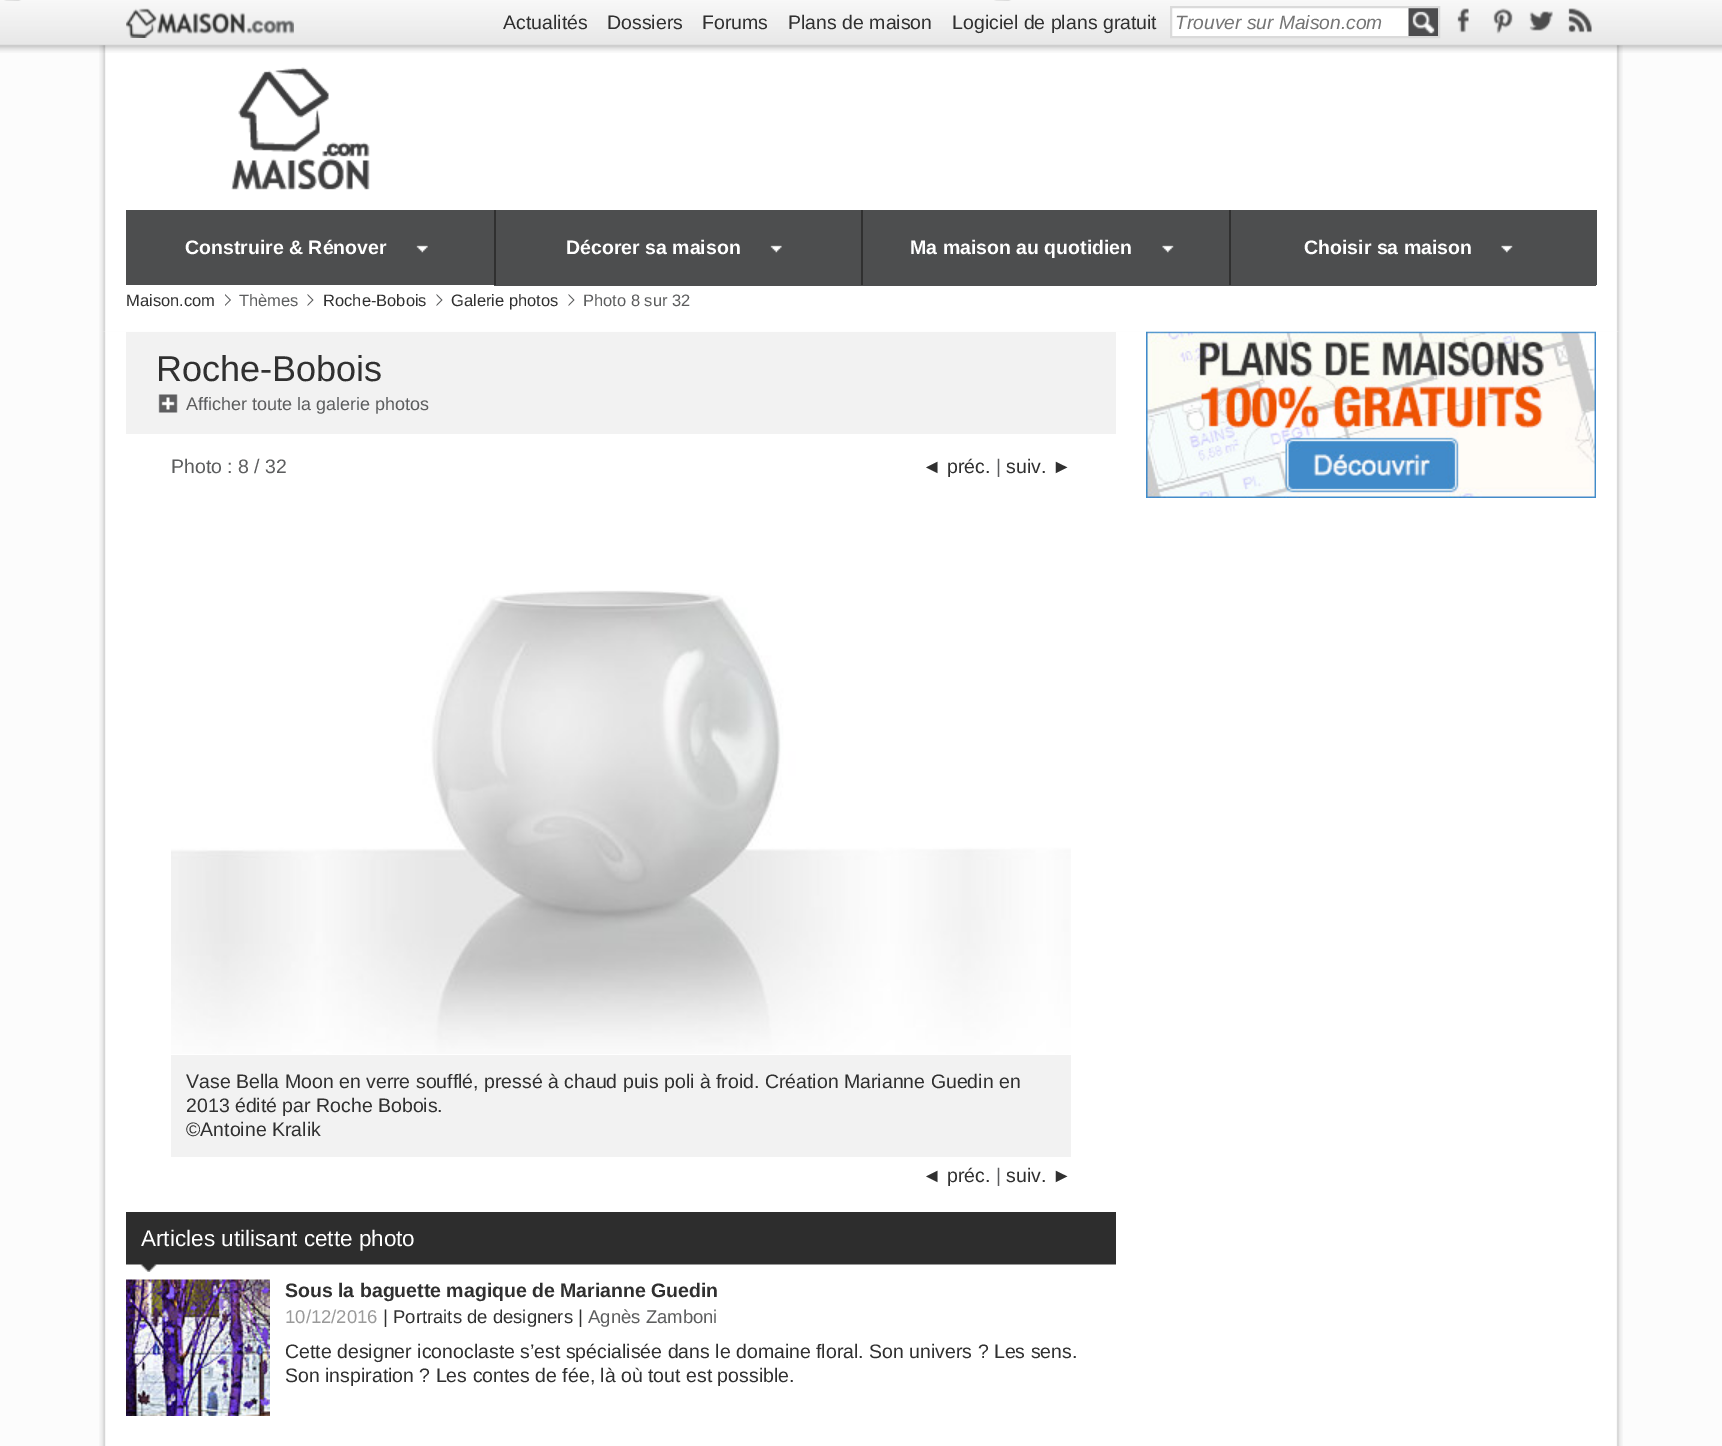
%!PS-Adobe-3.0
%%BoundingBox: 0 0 1722 1446
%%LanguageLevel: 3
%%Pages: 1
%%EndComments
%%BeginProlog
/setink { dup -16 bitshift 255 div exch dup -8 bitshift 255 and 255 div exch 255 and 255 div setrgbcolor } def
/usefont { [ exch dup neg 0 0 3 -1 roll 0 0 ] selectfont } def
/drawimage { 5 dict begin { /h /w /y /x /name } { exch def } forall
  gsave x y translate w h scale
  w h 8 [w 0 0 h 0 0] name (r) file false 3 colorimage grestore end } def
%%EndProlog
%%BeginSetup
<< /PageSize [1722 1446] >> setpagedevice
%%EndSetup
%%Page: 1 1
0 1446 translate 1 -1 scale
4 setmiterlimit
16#FFFFFF setink
0 0 1722 1446 rectfill
16#FCFCFC setink
0 44 1722 1402 rectfill
(img8.raw) 99 44 1524 288 drawimage
(img1.raw) 0 0 1722 53 drawimage
(img2.raw) 126 8 168 30 drawimage
/Arimo-Regular 19.5 usefont
16#303030 setink
[
    [(Actualités) 503 29]
    [(Dossiers) 607 29]
    [(Forums) 702 29]
    [(Plans de maison) 788 29]
    [(Logiciel de plans gratuit) 952 29]
] { aload pop moveto show } forall
16#FFFFFF setink
1172 8 237 28 rectfill
(img3.raw) 1408 8 30 28 drawimage
16#DADADA setink
2 setlinewidth
1171 7 268 30 rectstroke
/LiberationSans-Italic 19.25 usefont
16#757575 setink
1175 29 moveto (Trouver sur Maison.com) show
(img4.raw) 1457 8 12 25 drawimage
(img5.raw) 1493 8 20 26 drawimage
(img6.raw) 1529 11 24 20 drawimage
(img7.raw) 1568 8 24 25 drawimage
(img9.raw) 231 67 139 123 drawimage
16#4D4E4F setink
126 210 368 75 rectfill
/Arimo-Bold 19.5 usefont
16#FFFFFF setink
185 254 moveto (Construire & Rénover) show
(img10.raw) 416 245 12 8 drawimage
[
    [496 210 364 74 16#4D4E4F]
    [860 210 1 75 16#4D4E4F]
    [494 284 735 2 16#4D4E4F]
    [494 210 2 75 16#303030]
] { aload pop setink rectfill } forall
16#FFFFFF setink
566 254 moveto (Décorer sa maison) show
(img11.raw) 770 245 12 8 drawimage
16#4D4E4F setink
863 210 366 74 rectfill
16#303030 setink
861 210 2 75 rectfill
16#FFFFFF setink
910 254 moveto (Ma maison au quotidien) show
(img12.raw) 1162 245 12 8 drawimage
[
    [1231 210 364 74 16#4D4E4F]
    [1595 210 2 75 16#4D4E4F]
    [1229 284 367 2 16#4D4E4F]
    [1229 210 2 75 16#303030]
] { aload pop setink rectfill } forall
16#FFFFFF setink
1304 254 moveto (Choisir sa maison) show
(img12.raw) 1501 245 12 8 drawimage
/Arimo-Regular 16.5 usefont
16#303030 setink
126 306 moveto (Maison.com) show
16#5C5D5E setink
225 306 moveto 225 294 lineto 231 300 lineto closepath fill
16#FFFFFF setink
223.5 306 moveto 223.5 294 lineto 229.5 300 lineto closepath fill
16#5C5D5E setink
239 306 moveto (Thèmes) show
307.5 306 moveto 307.5 294 lineto 313.5 300 lineto closepath fill
16#FFFFFF setink
306 306 moveto 306 294 lineto 312 300 lineto closepath fill
16#303030 setink
323 306 moveto (Roche-Bobois) show
16#5C5D5E setink
436.5 306 moveto 436.5 294 lineto 442.5 300 lineto closepath fill
16#FFFFFF setink
435 306 moveto 435 294 lineto 441 300 lineto closepath fill
16#303030 setink
451 306 moveto (Galerie photos) show
16#5C5D5E setink
568.5 306 moveto 568.5 294 lineto 574.5 300 lineto closepath fill
16#FFFFFF setink
567 306 moveto 567 294 lineto 573 300 lineto closepath fill
16#5C5D5E setink
583 306 moveto (Photo 8 sur 32) show
(img13.raw) 99 331 1524 1115 drawimage
16#F2F2F2 setink
126 332 990 102 rectfill
/Arimo-Regular 36 usefont
16#303030 setink
156 381 moveto (Roche-Bobois) show
(img14.raw) 158 394 20 19 drawimage
/Arimo-Regular 18 usefont
16#5C5D5E setink
186 410 moveto (Afficher toute la galerie photos) show
/Arimo-Regular 19.5 usefont
171 473 moveto (Photo : 8 / 32) show
/LiberationSans-Regular 19.5 usefont
16#303030 setink
922 473 moveto (◄) show
/Arimo-Regular 19.5 usefont
947 473 moveto (préc.) show
16#5C5D5E setink
996 473 moveto (|) show
16#303030 setink
1006 473 moveto (suiv.) show
/LiberationSans-Regular 19.5 usefont
1052 473 moveto (►) show
(img15.raw) 171 590 900 464 drawimage
16#F2F2F2 setink
171 1055 900 102 rectfill
/Arimo-Regular 19.5 usefont
16#303030 setink
[
    [(Vase Bella Moon en verre soufflé, pressé à chaud puis poli à froid. Création Marianne Guedin en) 186 1088]
    [(2013 édité par Roche Bobois.) 186 1112]
    [(©Antoine Kralik) 186 1136]
] { aload pop moveto show } forall
/LiberationSans-Regular 19.5 usefont
922 1182 moveto (◄) show
/Arimo-Regular 19.5 usefont
947 1182 moveto (préc.) show
16#5C5D5E setink
996 1182 moveto (|) show
16#303030 setink
1006 1182 moveto (suiv.) show
/LiberationSans-Regular 19.5 usefont
1052 1182 moveto (►) show
(img16.raw) 126 1212 990 60 drawimage
/Arimo-Regular 22.5 usefont
16#FFFFFF setink
141 1246 moveto (Articles utilisant cette photo) show
(img17.raw) 126 1279 144 137 drawimage
/Arimo-Bold 19.5 usefont
16#303030 setink
285 1297 moveto (Sous la baguette magique de Marianne Guedin) show
/Arimo-Regular 18.5 usefont
16#9A9A9A setink
285 1323 moveto (10/12/2016) show
16#303030 setink
383 1323 moveto (| Portraits de designers |) show
16#5C5D5E setink
588 1323 moveto (Agnès Zamboni) show
/Arimo-Regular 19.5 usefont
16#303030 setink
285 1358 moveto (Cette designer iconoclaste s’est spécialisée dans le domaine floral. Son univers ? Les sens.) show
285 1382 moveto (Son inspiration ? Les contes de fée, là où tout est possible.) show
(img18.raw) 1146 331 450 167 drawimage
showpage
%%EOF
